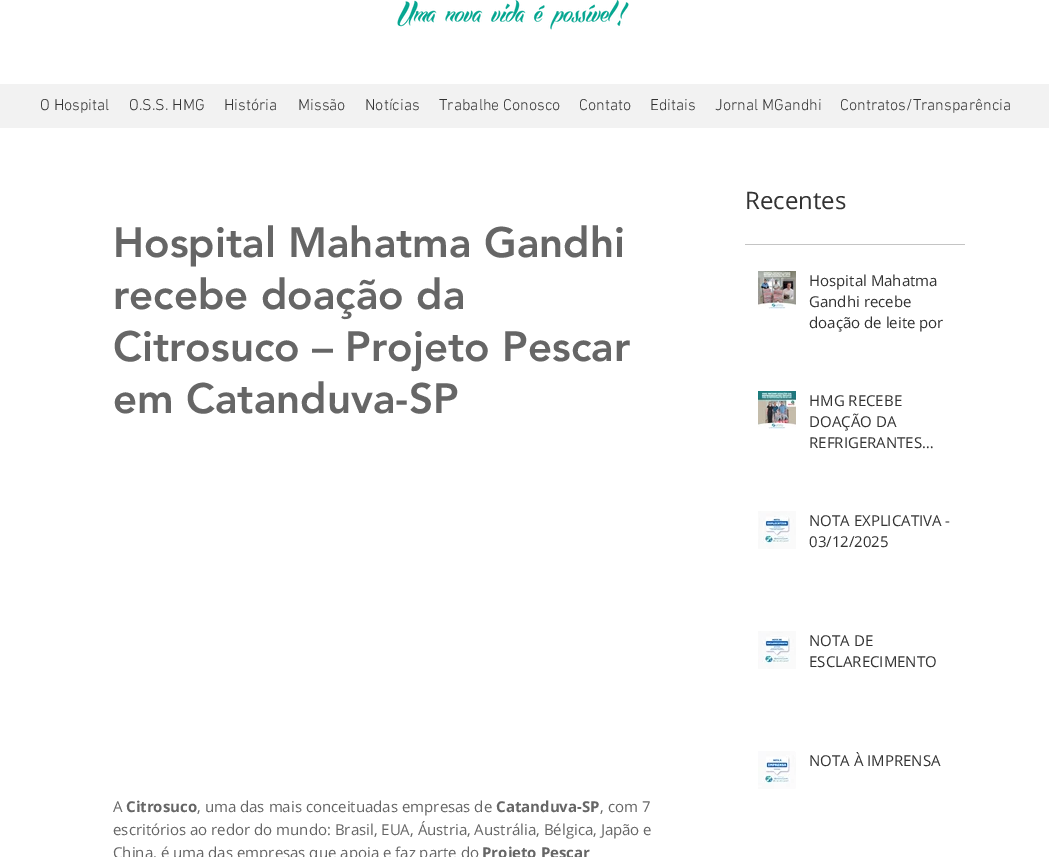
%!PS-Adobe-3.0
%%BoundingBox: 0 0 1049 857
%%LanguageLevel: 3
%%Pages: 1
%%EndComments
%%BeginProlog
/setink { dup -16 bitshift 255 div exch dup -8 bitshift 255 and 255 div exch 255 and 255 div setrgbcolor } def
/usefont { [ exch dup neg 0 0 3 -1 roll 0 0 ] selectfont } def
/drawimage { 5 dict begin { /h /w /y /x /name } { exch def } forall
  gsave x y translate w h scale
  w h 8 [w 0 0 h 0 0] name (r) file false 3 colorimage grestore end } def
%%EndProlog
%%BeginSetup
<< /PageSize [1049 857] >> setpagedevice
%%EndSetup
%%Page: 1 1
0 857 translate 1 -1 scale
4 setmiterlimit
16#FFFFFF setink
0 0 1049 857 rectfill
(img1.raw) 397 0 232 30 drawimage
16#F2F2F2 setink
0 84 1049 44 rectfill
/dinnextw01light-Light 16 usefont
16#333333 setink
[
    [(O Hospital) 40 110]
    [(O.S.S. HMG) 129 110]
    [(História) 224 110]
    [(Missão) 298 110]
    [(Notícias) 365 110]
    [(Trabalhe Conosco) 439 110]
    [(Contato) 579 110]
    [(Editais) 650 110]
    [(Jornal MGandhi) 715 110]
    [(Contratos/Transparência) 840 110]
] { aload pop moveto show } forall
/OpenSans-Regular 24 usefont
745 209 moveto (Recentes) show
/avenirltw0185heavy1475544-Black 42 usefont
16#666666 setink
[
    [(Hospital Mahatma Gandhi) 113 257]
    [(recebe doação da) 113 309]
    [(Citrosuco – Projeto Pescar) 113 361]
    [(em Catanduva-SP) 113 413]
] { aload pop moveto show } forall
/OpenSans-Regular 15 usefont
113 812 moveto (A) show
/OpenSans-Bold 15 usefont
126 812 moveto (Citrosuco) show
/OpenSans-Regular 15 usefont
197 812 moveto (, uma das mais conceituadas empresas de) show
/OpenSans-Bold 15 usefont
496 812 moveto (Catanduva-SP) show
/OpenSans-Regular 15 usefont
[
    [(, com 7) 600 812]
    [(escritórios ao redor do mundo: Brasil, EUA, Áustria, Austrália, Bélgica, Japão e) 113 835]
    [(China, é uma das empresas que apoia e faz parte do) 113 858]
] { aload pop moveto show } forall
/OpenSans-Bold 15 usefont
482 858 moveto (Projeto Pescar) show
16#C4C4C4 setink
745 244 220 1 rectfill
(img2.raw) 758 271 38 38 drawimage
/OpenSans-Regular 15 usefont
16#333333 setink
[
    [(Hospital Mahatma) 809 286]
    [(Gandhi recebe) 809 307]
    [(doação de leite por) 809 328]
] { aload pop moveto show } forall
(img3.raw) 758 391 38 38 drawimage
[
    [(HMG RECEBE) 809 406]
    [(DOAÇÃO DA) 809 427]
    [(REFRIGERANTES…) 809 448]
] { aload pop moveto show } forall
(img4.raw) 758 511 38 38 drawimage
(img5.raw) 760 513 36 36 drawimage
809 526 moveto (NOTA EXPLICATIVA -) show
809 547 moveto (03/12/2025) show
(img6.raw) 758 631 38 38 drawimage
(img7.raw) 759 633 37 36 drawimage
809 646 moveto (NOTA DE) show
809 667 moveto (ESCLARECIMENTO) show
(img8.raw) 758 751 37 38 drawimage
(img9.raw) 795 752 1 37 drawimage
809 766 moveto (NOTA À IMPRENSA) show
showpage
%%EOF
